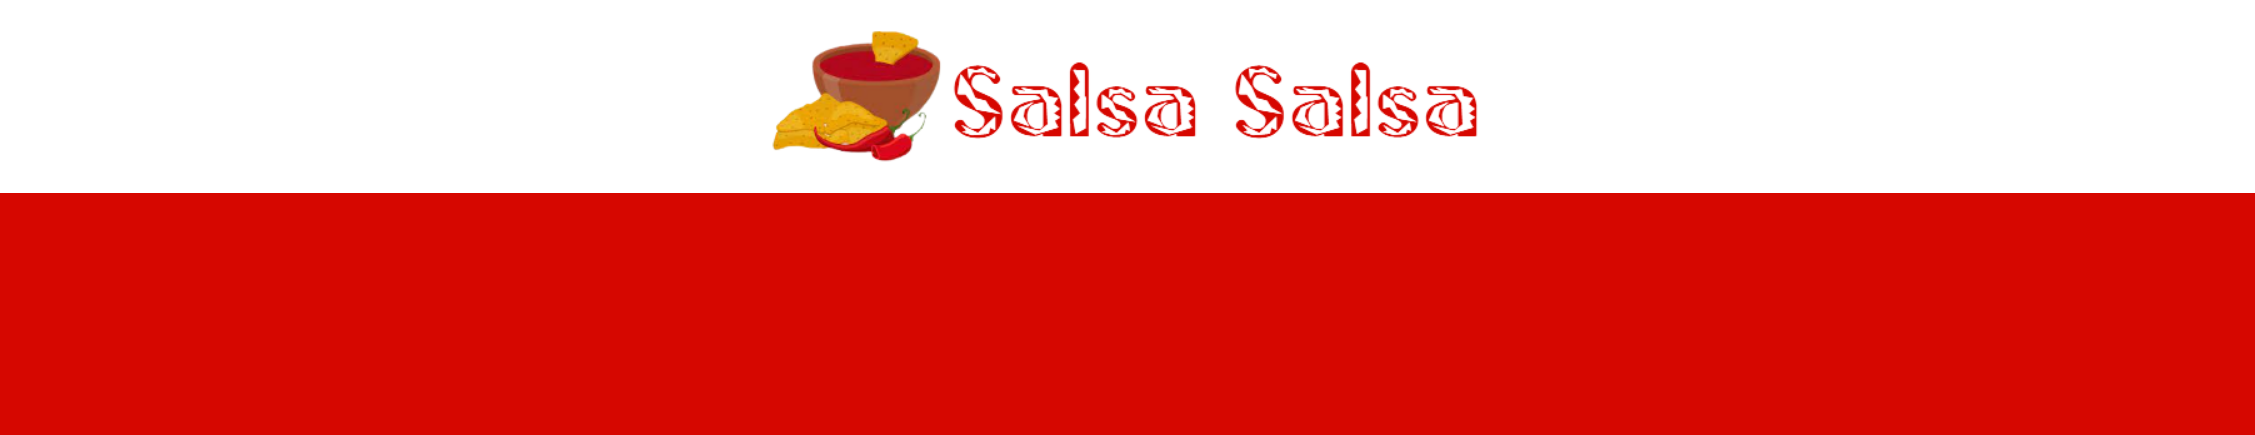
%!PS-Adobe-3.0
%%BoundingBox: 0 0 2255 435
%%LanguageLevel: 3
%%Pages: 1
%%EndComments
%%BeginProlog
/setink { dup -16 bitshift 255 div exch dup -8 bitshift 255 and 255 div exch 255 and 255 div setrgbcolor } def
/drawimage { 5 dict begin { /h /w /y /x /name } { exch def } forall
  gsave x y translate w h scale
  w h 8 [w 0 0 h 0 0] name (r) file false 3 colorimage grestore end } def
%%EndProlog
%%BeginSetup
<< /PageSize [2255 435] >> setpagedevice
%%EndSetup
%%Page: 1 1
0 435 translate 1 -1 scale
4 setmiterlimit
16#D60700 setink
0 0 2255 435 rectfill
16#FFFFFF setink
0 0 2255 193 rectfill
(img1.raw) 772 31 706 131 drawimage
showpage
%%EOF
